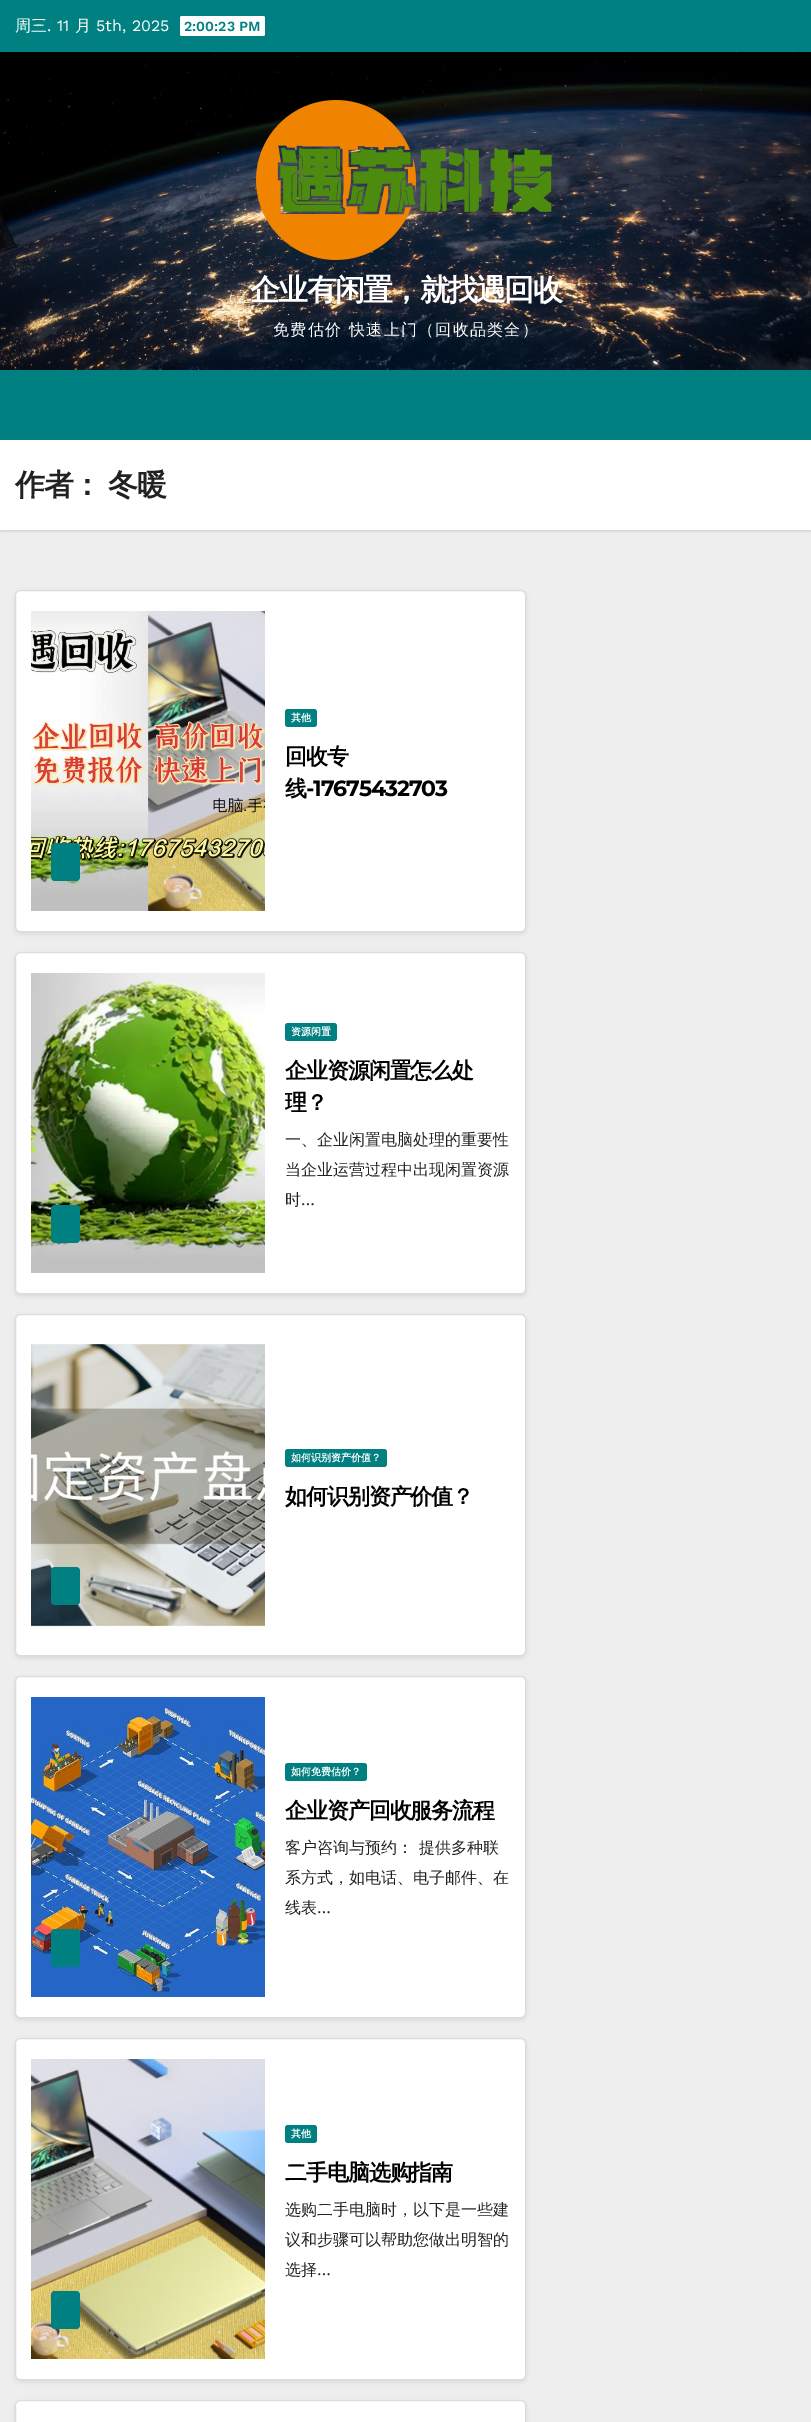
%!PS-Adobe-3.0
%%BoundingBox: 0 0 811 2422
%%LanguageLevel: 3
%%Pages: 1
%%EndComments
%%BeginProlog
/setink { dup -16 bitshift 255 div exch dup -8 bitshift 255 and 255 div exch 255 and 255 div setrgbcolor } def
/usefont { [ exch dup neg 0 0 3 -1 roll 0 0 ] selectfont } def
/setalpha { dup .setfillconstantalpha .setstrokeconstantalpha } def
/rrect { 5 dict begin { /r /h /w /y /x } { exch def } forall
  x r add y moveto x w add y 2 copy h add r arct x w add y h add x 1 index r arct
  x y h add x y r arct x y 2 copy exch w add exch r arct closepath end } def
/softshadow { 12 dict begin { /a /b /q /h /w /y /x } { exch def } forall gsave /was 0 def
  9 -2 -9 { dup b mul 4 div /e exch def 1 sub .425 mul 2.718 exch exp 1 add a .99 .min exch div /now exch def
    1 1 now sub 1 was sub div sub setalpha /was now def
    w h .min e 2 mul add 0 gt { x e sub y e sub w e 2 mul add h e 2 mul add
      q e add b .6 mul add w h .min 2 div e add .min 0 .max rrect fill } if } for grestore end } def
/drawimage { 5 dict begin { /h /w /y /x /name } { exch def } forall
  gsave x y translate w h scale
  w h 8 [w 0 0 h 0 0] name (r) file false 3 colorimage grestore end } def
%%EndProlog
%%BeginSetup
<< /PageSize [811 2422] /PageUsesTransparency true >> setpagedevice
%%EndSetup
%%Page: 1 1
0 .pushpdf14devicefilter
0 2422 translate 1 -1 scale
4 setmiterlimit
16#EEEEEE setink
0 0 811 2422 rectfill
16#008080 setink
0 0 811 52 rectfill
/WenQuanYiZenHei-Medium 16 usefont
16#FFFFFF setink
15 31 moveto (周三) show
/WorkSans-Regular 16 usefont
47 31 moveto (. 11) show
/WenQuanYiZenHei-Medium 16 usefont
75 31 moveto (月) show
/WorkSans-Regular 16 usefont
96 31 moveto (5th, 2025) show
180 16 85 20 2 rrect fill
/WorkSans-SemiBold 14 usefont
16#008080 setink
184 31 moveto (2:00:23 PM) show
(img1.raw) 0 52 811 318 drawimage
(img2.raw) 256 100 296 160 drawimage
/WenQuanYiZenHei-Bold 30 usefont
16#FFFFFF setink
250 300 moveto -1.75 0 (企业有闲置，就找遇回收) ashow
/WenQuanYiZenHei-Medium 16 usefont
273 335 moveto 1 0 32 1.25 0 (免费估价 快速上门（回收品类全）) awidthshow
16#000000 setink
0 441 811 90 0 1.5 0.15 softshadow
16#008080 setink
0 370 811 70 rectfill
16#FFFFFF setink
0 440 811 90 rectfill
/WenQuanYiZenHei-Bold 30 usefont
16#222222 setink
15 495 moveto -1.5 0 (作者：) ashow
108 495 moveto -1.5 0 (冬暖) ashow
16#000000 setink
15 592 511 342 5 2 0.08 softshadow
16#FFFFFF setink
15.5 590.5 510 341 4.5 rrect gsave fill grestore
16#DDDCDC setink
stroke
(img3.raw) 31 611 234 300 drawimage
16#008080 setink
51 843 29 38 4 rrect fill
285 709 32 18 3 rrect fill
/WenQuanYiZenHei-Bold 10 usefont
16#FFFFFF setink
291 721 moveto (其他) show
/WenQuanYiZenHei-Bold 22 usefont
16#000000 setink
285 764 moveto -1.1 0 (回收专) ashow
285 796 moveto -1.1 0 (线) ashow
/Montserrat-Bold 22 usefont
306 796 moveto -1.1 0 (-17675432703) ashow
15 954 511 342 5 2 0.08 softshadow
16#FFFFFF setink
15.5 952.5 510 341 4.5 rrect gsave fill grestore
16#DDDCDC setink
stroke
(img4.raw) 31 973 234 300 drawimage
16#008080 setink
51 1205 29 38 4 rrect fill
285 1023 52 18 3 rrect fill
/WenQuanYiZenHei-Bold 10 usefont
16#FFFFFF setink
291 1035 moveto (资源闲置) show
/WenQuanYiZenHei-Bold 22 usefont
16#000000 setink
285 1078 moveto -1.1 0 (企业资源闲置怎么处) ashow
285 1110 moveto -1.1 0 (理？) ashow
/WenQuanYiZenHei-Medium 16 usefont
16#222222 setink
[
    [(一、企业闲置电脑处理的重要性) 285 1145]
    [(当企业运营过程中出现闲置资源) 285 1175]
    [(时) 285 1205]
] { aload pop moveto show } forall
/WorkSans-Regular 16 usefont
301 1205 moveto (…) show
16#000000 setink
15 1316 511 342 5 2 0.08 softshadow
16#FFFFFF setink
15.5 1314.5 510 341 4.5 rrect gsave fill grestore
16#DDDCDC setink
stroke
(img5.raw) 31 1335 234 300 drawimage
16#008080 setink
51 1567 29 38 4 rrect fill
285 1449 102 18 3 rrect fill
/WenQuanYiZenHei-Bold 10 usefont
16#FFFFFF setink
291 1461 moveto (如何识别资产价值？) show
/WenQuanYiZenHei-Bold 22 usefont
16#000000 setink
285 1504 moveto -1.1 0 (如何识别资产价值？) ashow
15 1678 511 342 5 2 0.08 softshadow
16#FFFFFF setink
15.5 1676.5 510 341 4.5 rrect gsave fill grestore
16#DDDCDC setink
stroke
(img6.raw) 31 1697 234 300 drawimage
16#008080 setink
51 1929 29 38 4 rrect fill
285 1763 82 18 3 rrect fill
/WenQuanYiZenHei-Bold 10 usefont
16#FFFFFF setink
291 1775 moveto (如何免费估价？) show
/WenQuanYiZenHei-Bold 22 usefont
16#000000 setink
285 1818 moveto -1.1 0 (企业资产回收服务流程) ashow
/WenQuanYiZenHei-Medium 16 usefont
16#222222 setink
285 1853 moveto 1 0 32 (客户咨询与预约： 提供多种联) widthshow
285 1883 moveto (系方式，如电话、电子邮件、在) show
285 1913 moveto (线表) show
/WorkSans-Regular 16 usefont
317 1913 moveto (…) show
16#000000 setink
15 2040 511 342 5 2 0.08 softshadow
16#FFFFFF setink
15.5 2038.5 510 341 4.5 rrect gsave fill grestore
16#DDDCDC setink
stroke
(img7.raw) 31 2059 234 300 drawimage
16#008080 setink
51 2291 29 38 4 rrect fill
285 2125 32 18 3 rrect fill
/WenQuanYiZenHei-Bold 10 usefont
16#FFFFFF setink
291 2137 moveto (其他) show
/WenQuanYiZenHei-Bold 22 usefont
16#000000 setink
285 2180 moveto -1.1 0 (二手电脑选购指南) ashow
/WenQuanYiZenHei-Medium 16 usefont
16#222222 setink
[
    [(选购二手电脑时，以下是一些建) 285 2215]
    [(议和步骤可以帮助您做出明智的) 285 2245]
    [(选择) 285 2275]
] { aload pop moveto show } forall
/WorkSans-Regular 16 usefont
317 2275 moveto (…) show
16#000000 setink
15 2402 511 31 5 2 0.08 softshadow
16#FFFFFF setink
15.5 2400.5 510 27 4.5 rrect gsave fill grestore
16#DDDCDC setink
stroke
.poppdf14devicefilter showpage
%%EOF
